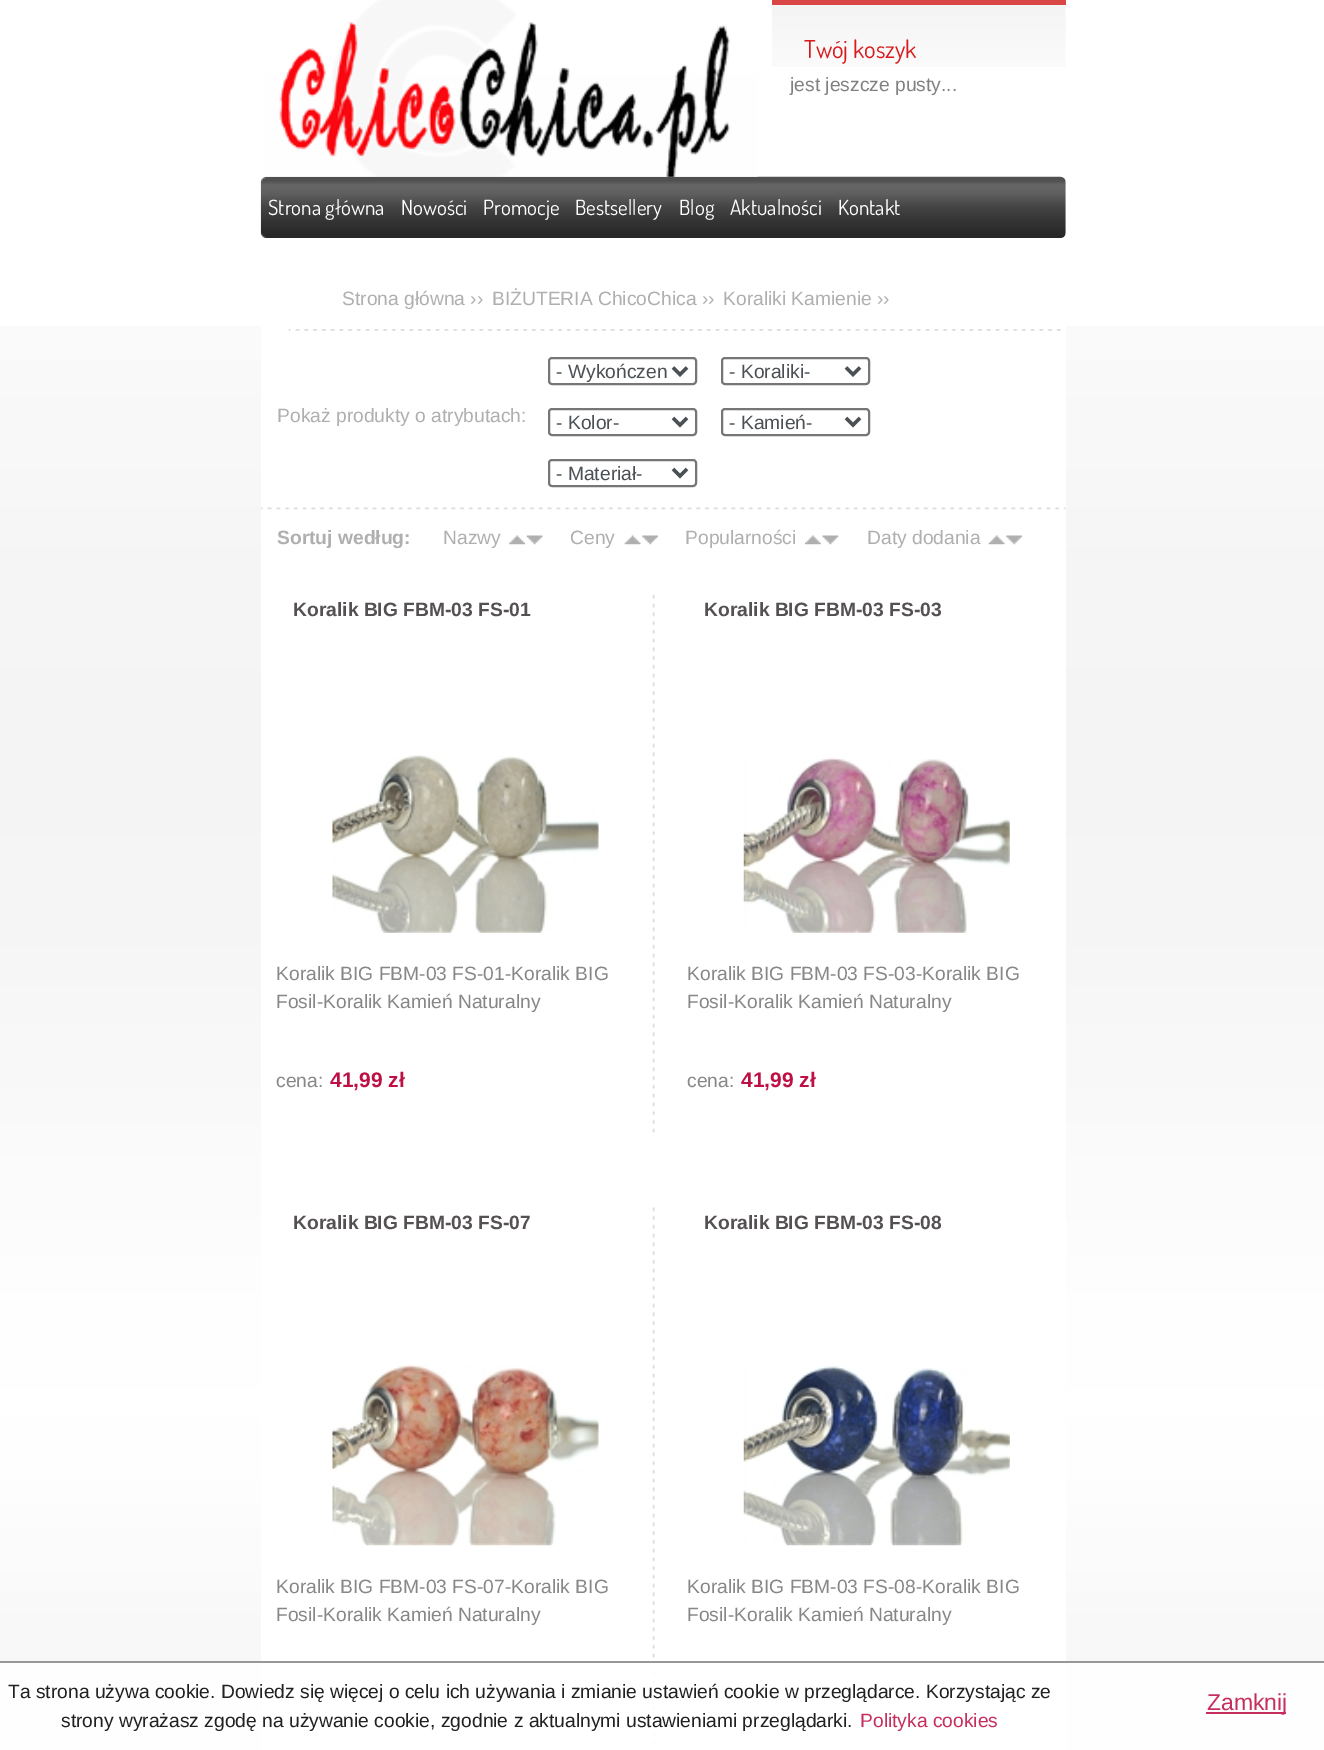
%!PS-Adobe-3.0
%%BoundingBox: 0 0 1324 1750
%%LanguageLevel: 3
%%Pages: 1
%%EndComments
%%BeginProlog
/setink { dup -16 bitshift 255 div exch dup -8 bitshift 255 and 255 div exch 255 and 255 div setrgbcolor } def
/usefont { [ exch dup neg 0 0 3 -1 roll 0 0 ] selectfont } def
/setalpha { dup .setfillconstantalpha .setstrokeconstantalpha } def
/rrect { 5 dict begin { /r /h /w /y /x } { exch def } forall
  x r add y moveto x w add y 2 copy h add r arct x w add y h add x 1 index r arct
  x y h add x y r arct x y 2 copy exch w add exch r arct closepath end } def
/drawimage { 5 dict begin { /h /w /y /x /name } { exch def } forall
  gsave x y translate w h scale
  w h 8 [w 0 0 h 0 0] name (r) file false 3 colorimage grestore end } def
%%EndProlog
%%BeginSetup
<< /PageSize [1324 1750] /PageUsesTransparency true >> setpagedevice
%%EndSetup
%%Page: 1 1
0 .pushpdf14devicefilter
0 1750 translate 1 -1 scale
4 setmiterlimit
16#FFFFFF setink
0 0 1324 1750 rectfill
(img1.raw) 0 326 1324 1424 drawimage
(img4.raw) 260 176 806 62 drawimage
(img2.raw) 265 0 493 177 drawimage
(img3.raw) 772 5 294 62 drawimage
16#D94646 setink
772 0 294 5 rectfill
/Dosis-Regular 24.5 usefont
16#D71A1B setink
804 58 moveto (Twój koszyk) show
/LiberationSans-Regular 19.25 usefont
16#828080 setink
790 91 moveto (jest jeszcze pusty...) show
/Dosis-Regular 21 usefont
16#FFFFFF setink
[
    [(Strona główna) 268 215]
    [(Nowości) 401 215]
    [(Promocje) 483 215]
    [(Bestsellery) 575 215]
    [(Blog) 679 215]
    [(Aktualności) 730 215]
    [(Kontakt) 838 215]
] { aload pop moveto show } forall
261 326 805 1424 rectfill
(img5.raw) 288 329 773 2 drawimage
/LiberationSans-Regular 19.25 usefont
16#AFAFAF setink
[
    [(Strona główna ››) 342 305]
    [(BIŻUTERIA ChicoChica ››) 492 305]
    [(Koraliki Kamienie ››) 723 305]
] { aload pop moveto show } forall
(img6.raw) 261 507 805 3 drawimage
16#767676 setink
2 setlinewidth
549 358 147 26 3 rrect stroke
16#4B5054 setink
3.5 setlinewidth
673 367.5 moveto 680 374.5 lineto 687 367.5 lineto stroke
556 378 moveto (- Wykończen) show
16#767676 setink
2 setlinewidth
722 358 147 26 3 rrect stroke
16#4B5054 setink
3.5 setlinewidth
846 367.5 moveto 853 374.5 lineto 860 367.5 lineto stroke
729 378 moveto (- Koraliki-) show
16#AFAFAF setink
277 422 moveto (Pokaż produkty o atrybutach:) show
16#767676 setink
2 setlinewidth
549 409 147 26 3 rrect stroke
16#4B5054 setink
3.5 setlinewidth
673 418 moveto 680 425 lineto 687 418 lineto stroke
556 429 moveto (- Kolor-) show
16#767676 setink
2 setlinewidth
722 409 147 26 3 rrect stroke
16#4B5054 setink
3.5 setlinewidth
846 418 moveto 853 425 lineto 860 418 lineto stroke
729 429 moveto (- Kamień-) show
16#767676 setink
2 setlinewidth
549 460 147 26 3 rrect stroke
16#4B5054 setink
3.5 setlinewidth
673 469 moveto 680 476 lineto 687 469 lineto stroke
556 480 moveto (- Materiał-) show
/LiberationSans-Bold 19.25 usefont
16#AFAFAF setink
277 544 moveto (Sortuj według:) show
/LiberationSans-Regular 19.25 usefont
443 544 moveto (Nazwy) show
(img7.raw) 509 535 16 10 drawimage
(img8.raw) 526 535 17 10 drawimage
570 544 moveto (Ceny) show
(img9.raw) 624 535 17 10 drawimage
(img10.raw) 642 535 16 10 drawimage
685 544 moveto (Popularności) show
(img11.raw) 805 535 16 10 drawimage
(img12.raw) 822 535 17 10 drawimage
867 544 moveto (Daty dodania) show
(img13.raw) 988 535 17 10 drawimage
(img14.raw) 1006 535 16 10 drawimage
(img15.raw) 652 595 3 538 drawimage
/LiberationSans-Bold 19.25 usefont
16#555152 setink
293 616 moveto (Koralik BIG FBM-03 FS-01) show
(img16.raw) 332 755 267 178 drawimage
/LiberationSans-Regular 19.25 usefont
16#878787 setink
[
    [(Koralik BIG FBM-03 FS-01-Koralik BIG) 276 980]
    [(Fosil-Koralik Kamień Naturalny) 276 1008]
    [(cena:) 276 1087]
] { aload pop moveto show } forall
/LiberationSans-Bold 21 usefont
16#BE1045 setink
330 1087 moveto (41,99 zł) show
/LiberationSans-Bold 19.25 usefont
16#555152 setink
704 616 moveto (Koralik BIG FBM-03 FS-03) show
(img17.raw) 743 757 267 176 drawimage
/LiberationSans-Regular 19.25 usefont
16#878787 setink
[
    [(Koralik BIG FBM-03 FS-03-Koralik BIG) 687 980]
    [(Fosil-Koralik Kamień Naturalny) 687 1008]
    [(cena:) 687 1087]
] { aload pop moveto show } forall
/LiberationSans-Bold 21 usefont
16#BE1045 setink
741 1087 moveto (41,99 zł) show
(img18.raw) 652 1207 3 538 drawimage
/LiberationSans-Bold 19.25 usefont
16#555152 setink
293 1229 moveto (Koralik BIG FBM-03 FS-07) show
(img19.raw) 332 1364 267 182 drawimage
/LiberationSans-Regular 19.25 usefont
16#878787 setink
276 1593 moveto (Koralik BIG FBM-03 FS-07-Koralik BIG) show
276 1621 moveto (Fosil-Koralik Kamień Naturalny) show
/LiberationSans-Bold 19.25 usefont
16#555152 setink
704 1229 moveto (Koralik BIG FBM-03 FS-08) show
(img20.raw) 743 1366 267 180 drawimage
/LiberationSans-Regular 19.25 usefont
16#878787 setink
687 1593 moveto (Koralik BIG FBM-03 FS-08-Koralik BIG) show
687 1621 moveto (Fosil-Koralik Kamień Naturalny) show
0.87 setalpha
16#FFFFFF setink
0 1663 1324 87 rectfill
1 setalpha
16#979797 setink
0 1661 1324 2 rectfill
16#212121 setink
8 1698 moveto (Ta strona używa cookie. Dowiedz się więcej o celu ich używania i zmianie ustawień cookie w przeglądarce. Korzystając ze) show
61 1727 moveto (strony wyrażasz zgodę na używanie cookie, zgodnie z aktualnymi ustawieniami przeglądarki.) show
16#C62F5D setink
860 1727 moveto (Polityka cookies) show
16#C52E5C setink
1206 1712 80 2 rectfill
/LiberationSans-Regular 23 usefont
16#C62F5D setink
1207 1710 moveto (Zamknij) show
.poppdf14devicefilter showpage
%%EOF
